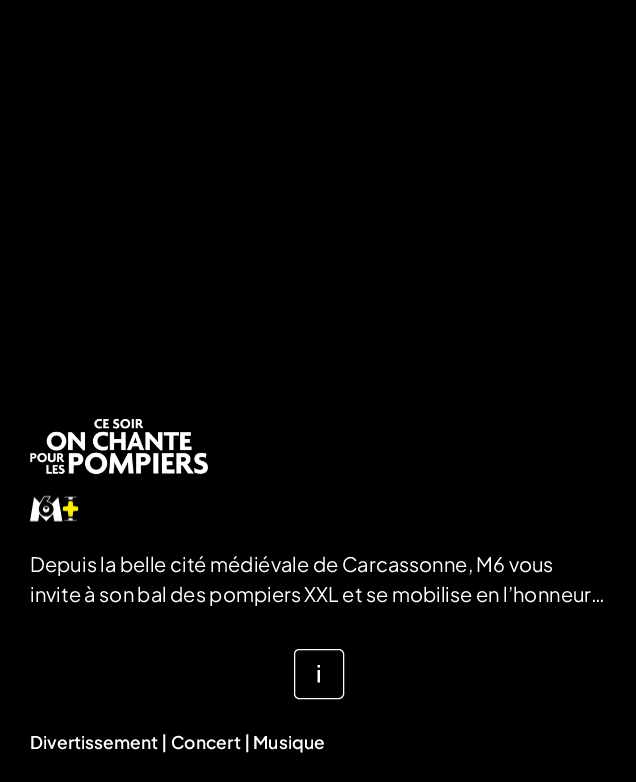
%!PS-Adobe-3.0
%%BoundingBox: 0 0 636 782
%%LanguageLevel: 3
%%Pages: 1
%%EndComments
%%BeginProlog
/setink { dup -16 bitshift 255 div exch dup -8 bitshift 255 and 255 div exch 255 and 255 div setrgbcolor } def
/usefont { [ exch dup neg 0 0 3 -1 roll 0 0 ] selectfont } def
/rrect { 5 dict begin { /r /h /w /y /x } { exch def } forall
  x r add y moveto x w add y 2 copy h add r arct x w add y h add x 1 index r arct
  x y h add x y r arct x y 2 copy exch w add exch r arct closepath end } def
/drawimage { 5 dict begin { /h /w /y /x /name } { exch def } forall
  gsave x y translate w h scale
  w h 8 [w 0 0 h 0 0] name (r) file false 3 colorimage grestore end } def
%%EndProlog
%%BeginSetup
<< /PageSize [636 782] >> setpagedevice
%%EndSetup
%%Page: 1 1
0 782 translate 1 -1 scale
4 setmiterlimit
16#000000 setink
0 0 636 782 rectfill
(img1.raw) 30 418 178 57 drawimage
(img2.raw) 30 495 49 27 drawimage
/PlusJakartaSans-Regular 20 usefont
16#FFFFFF setink
30 572 moveto (Depuis la belle cité médiévale de Carcassonne, M6 vous) show
30 602 moveto (invite à son bal des pompiers XXL et se mobilise en l’honneur…) show
294.5 649.5 49 49 4.5 rrect stroke
(img3.raw) 317 665 3 18 drawimage
/PlusJakartaSans-SemiBold 17.5 usefont
30 749 moveto (Divertissement | Concert | Musique) show
showpage
%%EOF
